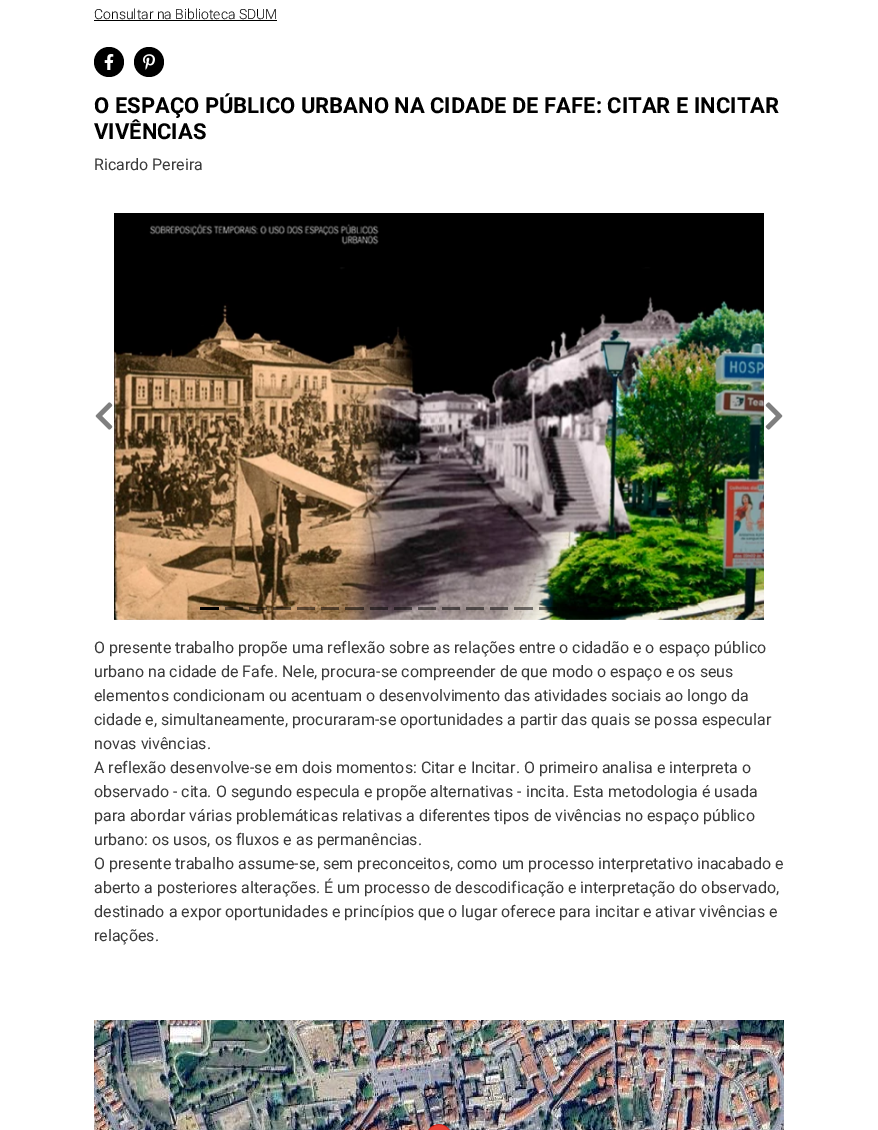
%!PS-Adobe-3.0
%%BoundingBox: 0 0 878 1130
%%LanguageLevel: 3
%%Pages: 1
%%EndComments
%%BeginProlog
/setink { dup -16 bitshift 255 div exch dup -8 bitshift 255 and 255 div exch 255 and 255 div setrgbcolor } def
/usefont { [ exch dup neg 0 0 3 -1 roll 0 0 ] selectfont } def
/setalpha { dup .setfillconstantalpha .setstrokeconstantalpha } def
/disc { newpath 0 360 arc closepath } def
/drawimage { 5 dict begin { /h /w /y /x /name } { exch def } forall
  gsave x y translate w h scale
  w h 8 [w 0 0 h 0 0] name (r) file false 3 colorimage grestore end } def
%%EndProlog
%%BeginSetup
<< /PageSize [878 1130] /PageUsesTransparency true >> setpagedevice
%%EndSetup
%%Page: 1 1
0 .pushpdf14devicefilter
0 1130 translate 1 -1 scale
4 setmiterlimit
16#FFFFFF setink
0 0 878 1130 rectfill
/Roboto-Light 14 usefont
16#000000 setink
94 19 moveto (Consultar na Biblioteca SDUM) show
94 20 183 1 rectfill
109 62 15 disc fill
(img1.raw) 104 54 10 16 drawimage
149 62 15 disc fill
(img2.raw) 143 54 12 16 drawimage
/Roboto-Bold 22 usefont
94 113 moveto (O ESPAÇO PÚBLICO URBANO NA CIDADE DE FAFE: CITAR E INCITAR) show
94 139 moveto (VIVÊNCIAS) show
/Roboto-Regular 16 usefont
16#3A3A3A setink
94 170 moveto (Ricardo Pereira) show
(img3.raw) 95 402 18 28 drawimage
(img4.raw) 114 213 650 407 drawimage
(img5.raw) 765 402 18 28 drawimage
[
    [200 607 19 3 16#000000]
] { aload pop setink rectfill } forall
0.5 setalpha
[
    [225 607 18 3 16#000000]
    [249 607 18 3 16#000000]
    [273 607 18 3 16#000000]
    [297 607 18 3 16#000000]
    [321 607 18 3 16#000000]
    [345 607 19 3 16#000000]
    [370 607 18 3 16#000000]
    [394 607 18 3 16#000000]
    [418 607 18 3 16#000000]
    [442 607 18 3 16#000000]
    [466 607 18 3 16#000000]
    [490 607 18 3 16#000000]
    [514 607 19 3 16#000000]
    [539 607 18 3 16#000000]
    [563 607 2 1 16#000000]
    [587 607 18 3 16#000000]
    [611 607 18 3 16#000000]
    [635 607 18 3 16#000000]
    [659 607 19 3 16#000000]
] { aload pop setink rectfill } forall
1 setalpha
16#3A3A3A setink
[
    [(O presente trabalho propõe uma reflexão sobre as relações entre o cidadão e o espaço público) 94 653]
    [(urbano na cidade de Fafe. Nele, procura-se compreender de que modo o espaço e os seus) 94 677]
    [(elementos condicionam ou acentuam o desenvolvimento das atividades sociais ao longo da) 94 701]
    [(cidade e, simultaneamente, procuraram-se oportunidades a partir das quais se possa especular) 94 725]
    [(novas vivências.) 94 749]
    [(A reflexão desenvolve-se em dois momentos: Citar e Incitar. O primeiro analisa e interpreta o) 94 773]
    [(observado - cita. O segundo especula e propõe alternativas - incita. Esta metodologia é usada) 94 797]
    [(para abordar várias problemáticas relativas a diferentes tipos de vivências no espaço público) 94 821]
    [(urbano: os usos, os fluxos e as permanências.) 94 845]
    [(O presente trabalho assume-se, sem preconceitos, como um processo interpretativo inacabado e) 94 869]
    [(aberto a posteriores alterações. É um processo de descodificação e interpretação do observado,) 94 893]
    [(destinado a expor oportunidades e princípios que o lugar oferece para incitar e ativar vivências e) 94 917]
    [(relações.) 94 941]
] { aload pop moveto show } forall
(img6.raw) 94 1020 203 110 drawimage
(img7.raw) 297 1020 256 110 drawimage
(img8.raw) 553 1020 231 110 drawimage
(img9.raw) 428 1124 22 6 drawimage
.poppdf14devicefilter showpage
%%EOF
